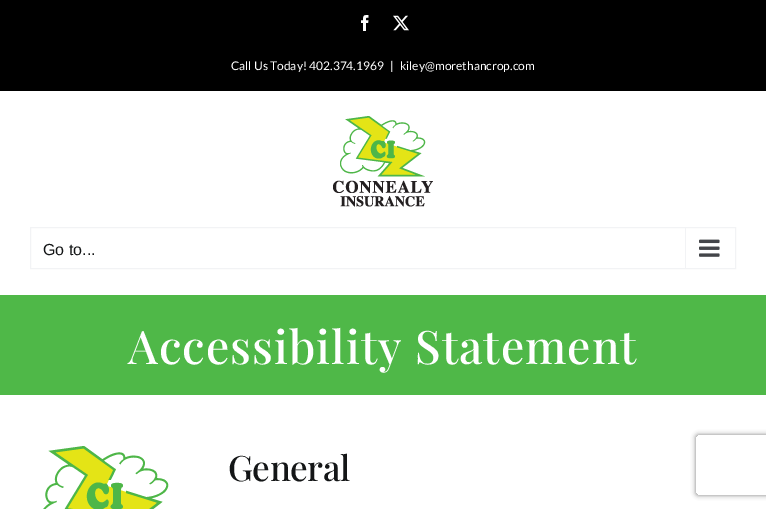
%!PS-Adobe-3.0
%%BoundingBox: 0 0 766 509
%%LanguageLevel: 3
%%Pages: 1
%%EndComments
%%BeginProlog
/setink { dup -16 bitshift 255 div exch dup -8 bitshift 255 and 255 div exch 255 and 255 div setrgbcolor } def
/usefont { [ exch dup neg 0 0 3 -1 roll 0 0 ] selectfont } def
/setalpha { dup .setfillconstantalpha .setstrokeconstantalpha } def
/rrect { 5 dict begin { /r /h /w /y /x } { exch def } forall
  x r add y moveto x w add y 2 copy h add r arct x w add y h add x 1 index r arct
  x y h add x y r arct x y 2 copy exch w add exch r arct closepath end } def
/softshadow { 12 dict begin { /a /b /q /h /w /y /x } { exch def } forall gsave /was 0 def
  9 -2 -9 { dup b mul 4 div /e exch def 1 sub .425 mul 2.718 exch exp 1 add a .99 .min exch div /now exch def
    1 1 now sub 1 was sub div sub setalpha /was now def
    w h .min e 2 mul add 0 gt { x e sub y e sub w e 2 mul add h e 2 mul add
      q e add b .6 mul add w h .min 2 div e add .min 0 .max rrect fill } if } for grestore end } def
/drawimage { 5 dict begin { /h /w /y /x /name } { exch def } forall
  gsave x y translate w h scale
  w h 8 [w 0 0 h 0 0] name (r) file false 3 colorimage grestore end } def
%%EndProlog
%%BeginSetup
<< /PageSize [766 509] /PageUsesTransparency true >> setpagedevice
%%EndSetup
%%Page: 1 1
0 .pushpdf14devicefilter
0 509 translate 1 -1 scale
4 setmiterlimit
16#FFFFFF setink
0 0 766 509 rectfill
16#000000 setink
0 0 766 91 rectfill
(img1.raw) 361 15 8 16 drawimage
(img2.raw) 393 15 16 16 drawimage
/Lato-Regular 12 usefont
16#FFFFFF setink
[
    [(Call Us Today! 402.374.1969) 231 70]
    [(|) 390 70]
    [(kiley@morethancrop.com) 400 70]
] { aload pop moveto show } forall
(img3.raw) 333 116 100 91 drawimage
16#F2F3F5 setink
30.5 227.5 705 41 rectstroke
/LiberationSans-Regular 16 usefont
16#141617 setink
43 255 moveto (Go to...) show
16#F2F3F5 setink
685 228 1 40 rectfill
(img4.raw) 699 239 21 18 drawimage
16#4FB848 setink
0 295 766 100 rectfill
/PlayfairDisplay-Medium 46.25 usefont
16#FFFFFF setink
128 364 moveto 1 0 (Accessibility Statement) ashow
(img5.raw) 43 446 126 63 drawimage
/PlayfairDisplay-Medium 35 usefont
16#141617 setink
228 481 moveto -0.5 0 (General) ashow
gsave
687 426 moveto 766 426 lineto 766 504 lineto 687 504 lineto closepath 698 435 moveto 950 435 lineto 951 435 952 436 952 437 curveto 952 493 lineto 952 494 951 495 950 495 curveto 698 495 lineto 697 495 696 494 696 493 curveto 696 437 lineto 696 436 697 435 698 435 curveto closepath eoclip newpath
16#808080 setink
696 435 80 60 2 2.5 1 softshadow
grestore
.poppdf14devicefilter showpage
%%EOF
